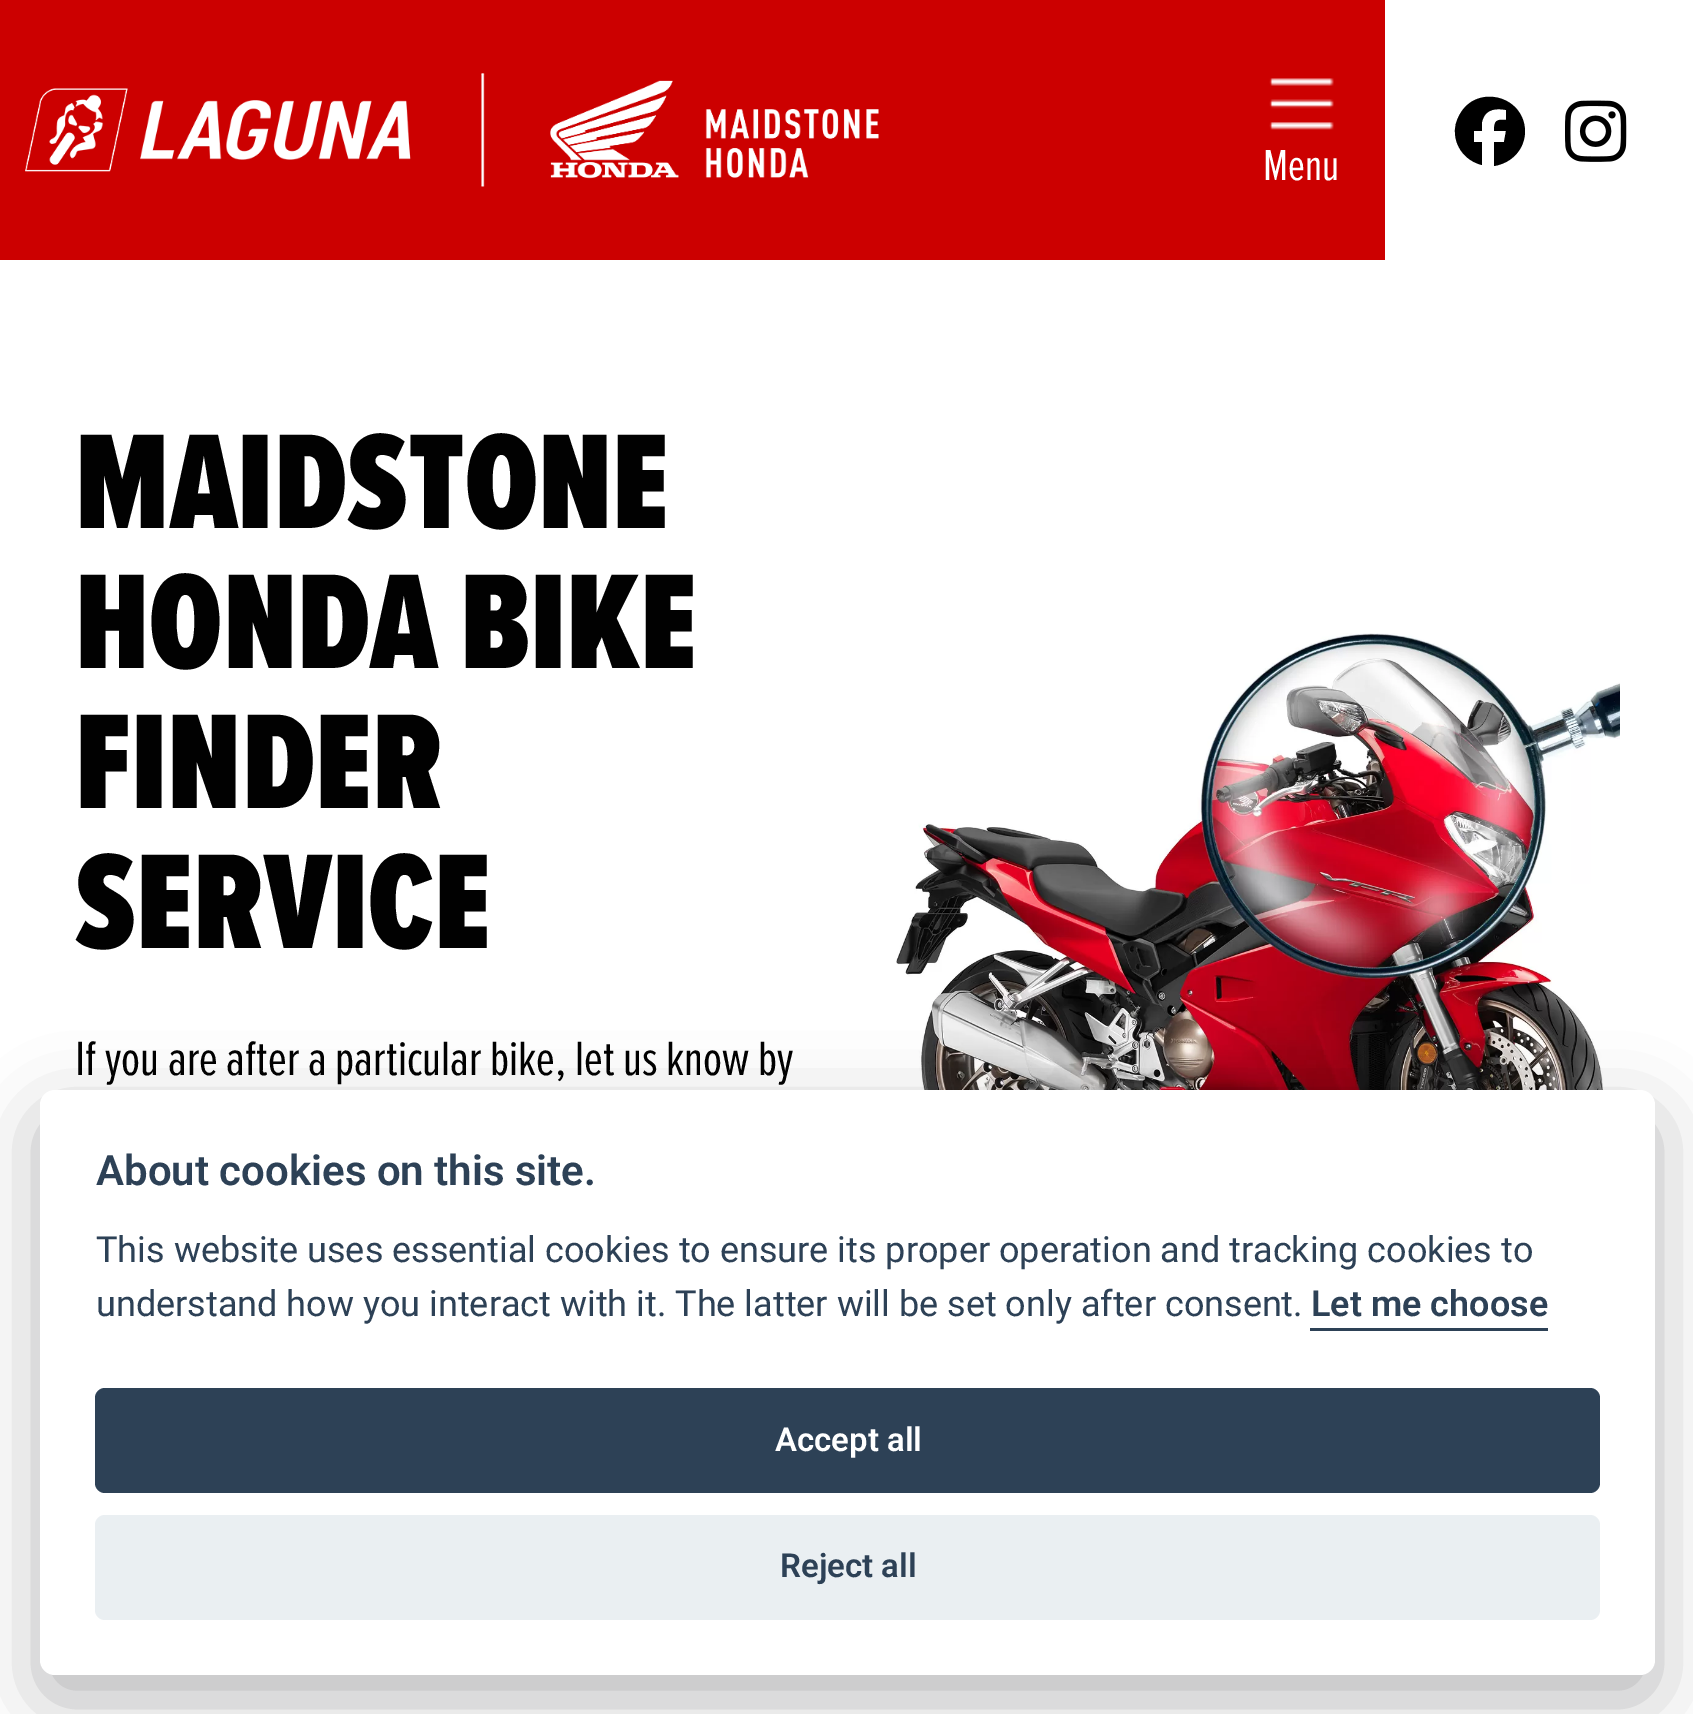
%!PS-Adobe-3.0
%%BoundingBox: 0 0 1693 1714
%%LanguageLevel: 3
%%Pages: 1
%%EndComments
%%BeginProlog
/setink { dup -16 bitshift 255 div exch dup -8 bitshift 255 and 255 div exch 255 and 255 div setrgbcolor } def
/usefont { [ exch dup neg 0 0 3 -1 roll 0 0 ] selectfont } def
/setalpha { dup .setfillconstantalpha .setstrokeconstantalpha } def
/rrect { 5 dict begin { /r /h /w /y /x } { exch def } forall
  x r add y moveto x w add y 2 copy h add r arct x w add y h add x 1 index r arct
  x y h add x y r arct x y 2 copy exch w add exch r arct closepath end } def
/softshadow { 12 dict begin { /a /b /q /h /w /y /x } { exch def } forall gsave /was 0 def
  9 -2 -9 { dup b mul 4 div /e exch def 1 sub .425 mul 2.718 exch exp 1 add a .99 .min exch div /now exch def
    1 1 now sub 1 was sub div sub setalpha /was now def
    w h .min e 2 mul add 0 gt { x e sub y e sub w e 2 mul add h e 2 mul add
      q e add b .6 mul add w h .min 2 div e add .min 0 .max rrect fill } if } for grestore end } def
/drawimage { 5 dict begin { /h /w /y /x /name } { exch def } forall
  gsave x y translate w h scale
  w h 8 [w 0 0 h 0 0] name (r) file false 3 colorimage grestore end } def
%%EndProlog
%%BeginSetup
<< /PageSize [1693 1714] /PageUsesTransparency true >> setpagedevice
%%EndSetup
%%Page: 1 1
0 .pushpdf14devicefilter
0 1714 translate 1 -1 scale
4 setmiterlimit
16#FFFFFF setink
0 0 1693 1714 rectfill
16#CC0000 setink
0 0 1385 260 rectfill
(img1.raw) 25 73 460 114 drawimage
(img2.raw) 550 80 329 99 drawimage
(img3.raw) 1269 78 65 52 drawimage
/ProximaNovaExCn-Regular 45 usefont
16#FFFFFF setink
1263 180 moveto (Menu) show
16#000000 setink
1525 131 moveto 1524 94 1473 83 1458 118 curveto 1454 126 1454 135 1457 143 curveto 1461 154 1470 162 1482 165 curveto 1482 142 lineto 1474 142 lineto 1474 131 lineto 1482 131 lineto 1482 127 1481 123 1483 119 curveto 1486 109 1497 108 1506 110 curveto 1506 120 lineto 1496 119 1494 121 1494 131 curveto 1506 131 lineto 1504 142 lineto 1494 142 lineto 1494 166 lineto 1512 163 1525 149 1525 131 curveto closepath fill
(img4.raw) 1565 100 62 62 drawimage
/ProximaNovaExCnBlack-Black 140 usefont
16#010101 setink
[
    [(MAIDSTONE) 75 528]
    [(HONDA BIKE) 75 668]
    [(FINDER) 75 808]
    [(SERVICE) 75 948]
] { aload pop moveto show } forall
/ProximaNovaExCn-Regular 50 usefont
75 1075 moveto (If you are after a particular bike, let us know by) show
(img5.raw) 896 633 724 457 drawimage
16#020203 setink
40 1115 1615 585 15 37.5 0.28 softshadow
16#FFFFFF setink
40 1090 1615 585 15 rrect fill
/Roboto-SemiBold 42 usefont
16#2D4156 setink
96 1185 moveto (About cookies on this site.) show
/Roboto-Regular 36 usefont
96 1262 moveto (This website uses essential cookies to ensure its proper operation and tracking cookies to) show
96 1316 moveto (understand how you interact with it. The latter will be set only after consent.) show
/Roboto-SemiBold 36 usefont
1311 1316 moveto (Let me choose) show
1310 1328 238 3 rectfill
95 1388 1505 105 10 rrect fill
/Roboto-SemiBold 33 usefont
16#FFFFFF setink
775 1451 moveto (Accept all) show
16#EAEFF2 setink
95 1515 1505 105 10 rrect fill
16#2D4156 setink
780 1577 moveto (Reject all) show
.poppdf14devicefilter showpage
%%EOF
